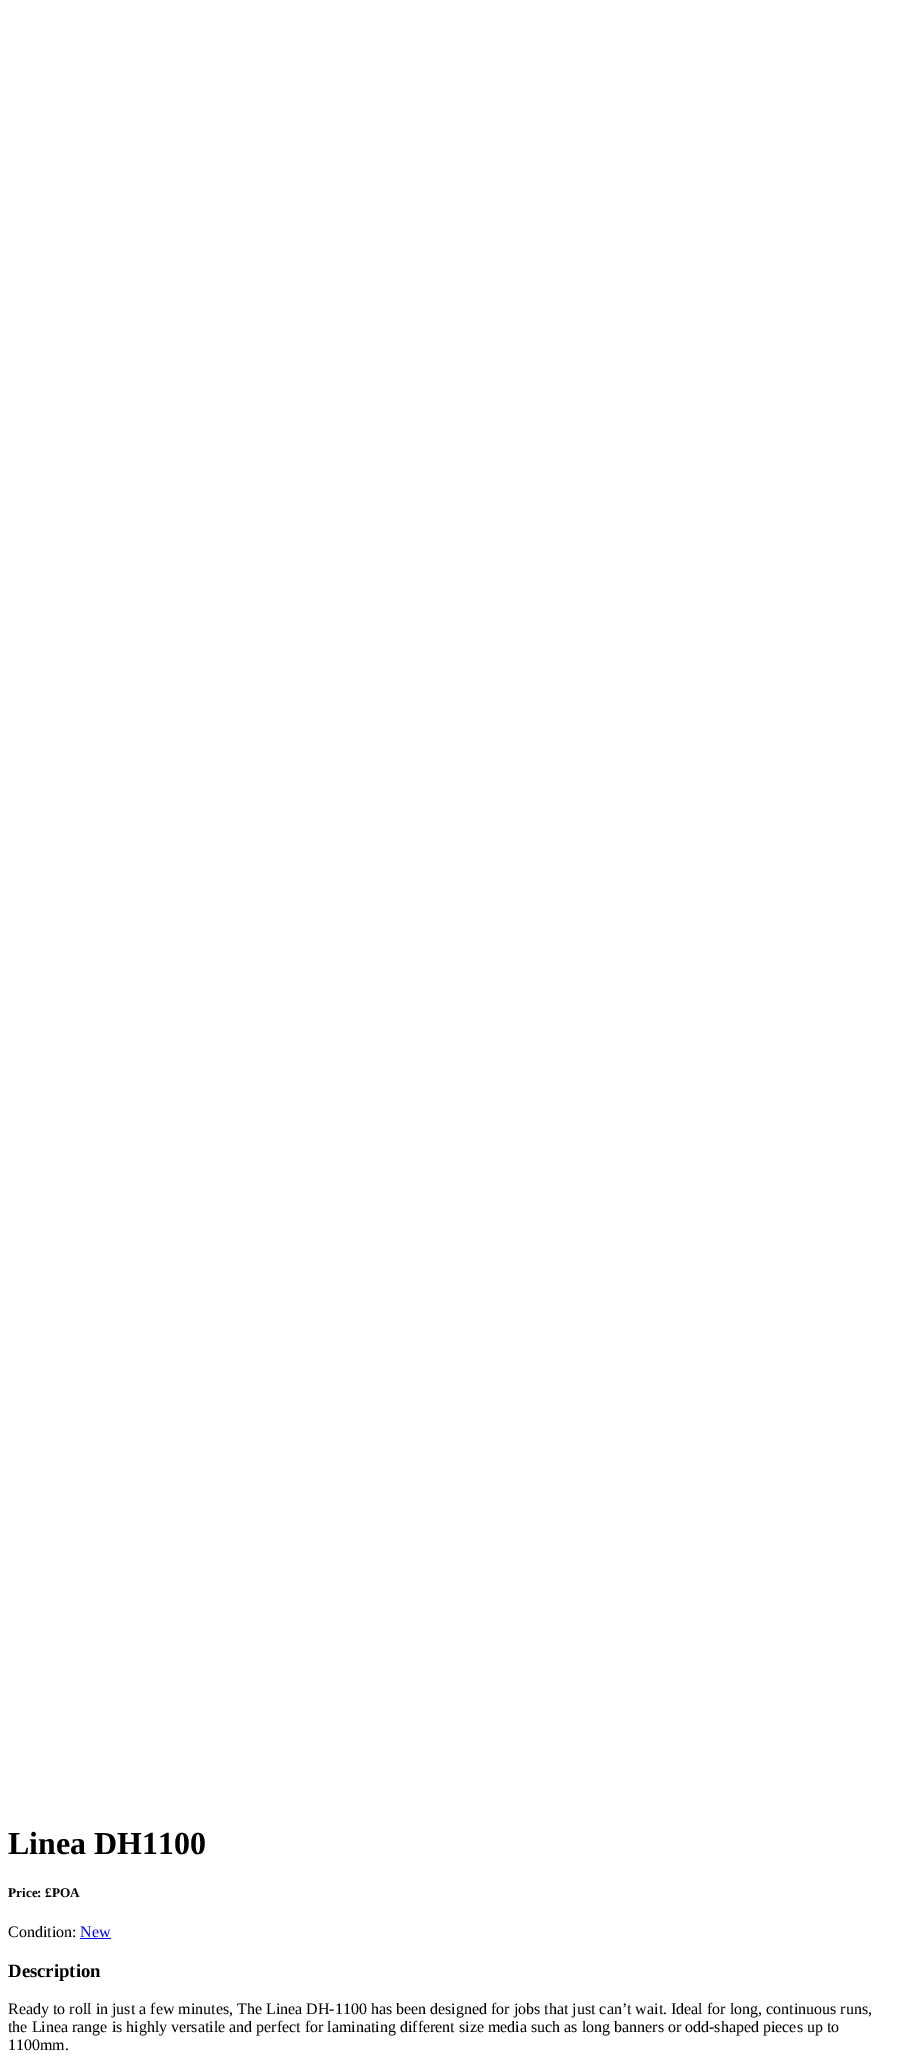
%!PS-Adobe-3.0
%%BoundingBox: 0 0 901 2063
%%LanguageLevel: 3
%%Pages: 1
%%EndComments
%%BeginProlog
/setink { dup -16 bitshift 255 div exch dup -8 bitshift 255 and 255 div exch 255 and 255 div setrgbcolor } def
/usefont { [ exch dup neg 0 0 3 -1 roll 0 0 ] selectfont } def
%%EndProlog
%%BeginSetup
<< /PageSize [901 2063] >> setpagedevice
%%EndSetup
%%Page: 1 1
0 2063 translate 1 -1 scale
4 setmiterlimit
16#FFFFFF setink
0 0 901 2063 rectfill
/LiberationSerif-Bold 32 usefont
16#000000 setink
8 1854 moveto (Linea DH1100) show
/LiberationSerif-Bold 13.25 usefont
8 1897 moveto (Price: £POA) show
/LiberationSerif-Regular 16 usefont
8 1937 moveto (Condition:) show
16#0000EE setink
80 1937 moveto (New) show
80 1938 31 1 rectfill
/LiberationSerif-Bold 18.75 usefont
16#000000 setink
8 1977 moveto (Description) show
/LiberationSerif-Regular 16 usefont
[
    [(Ready to roll in just a few minutes, The Linea DH-1100 has been designed for jobs that just can’t wait. Ideal for long, continuous runs,) 8 2014]
    [(the Linea range is highly versatile and perfect for laminating different size media such as long banners or odd-shaped pieces up to) 8 2032]
    [(1100mm.) 8 2050]
] { aload pop moveto show } forall
showpage
%%EOF
